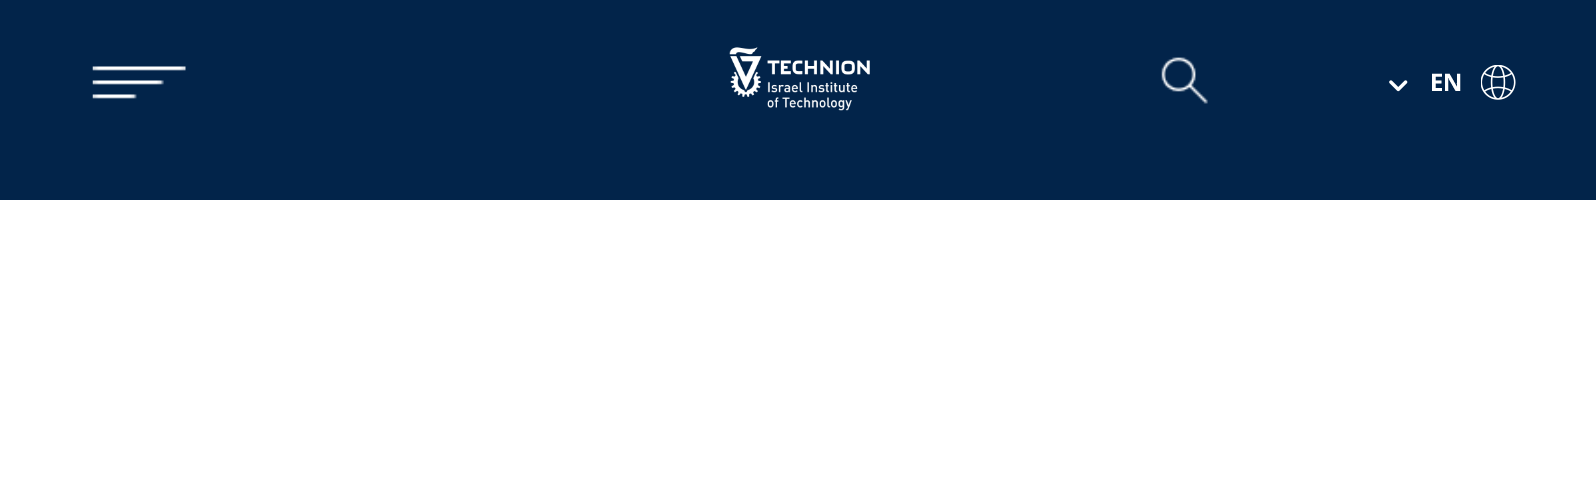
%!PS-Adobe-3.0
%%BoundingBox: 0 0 1596 493
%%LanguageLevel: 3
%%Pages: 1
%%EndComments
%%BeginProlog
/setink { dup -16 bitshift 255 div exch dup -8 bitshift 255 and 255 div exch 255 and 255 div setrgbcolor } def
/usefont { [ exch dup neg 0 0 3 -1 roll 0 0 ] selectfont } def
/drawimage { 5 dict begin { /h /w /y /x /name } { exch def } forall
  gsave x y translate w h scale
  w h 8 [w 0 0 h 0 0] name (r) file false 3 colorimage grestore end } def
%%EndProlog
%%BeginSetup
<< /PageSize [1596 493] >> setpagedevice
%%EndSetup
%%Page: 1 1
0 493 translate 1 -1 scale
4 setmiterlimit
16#FFFFFF setink
0 0 1596 493 rectfill
16#02244A setink
0 0 1596 200 rectfill
(img1.raw) 92 66 94 33 drawimage
(img2.raw) 729 47 141 64 drawimage
(img3.raw) 1161 57 47 47 drawimage
(img4.raw) 1389 80 19 12 drawimage
/NotoSansHebrew-Bold 24 usefont
16#FFFFFF setink
1430 91 moveto (EN) show
(img5.raw) 1481 65 35 35 drawimage
showpage
%%EOF
